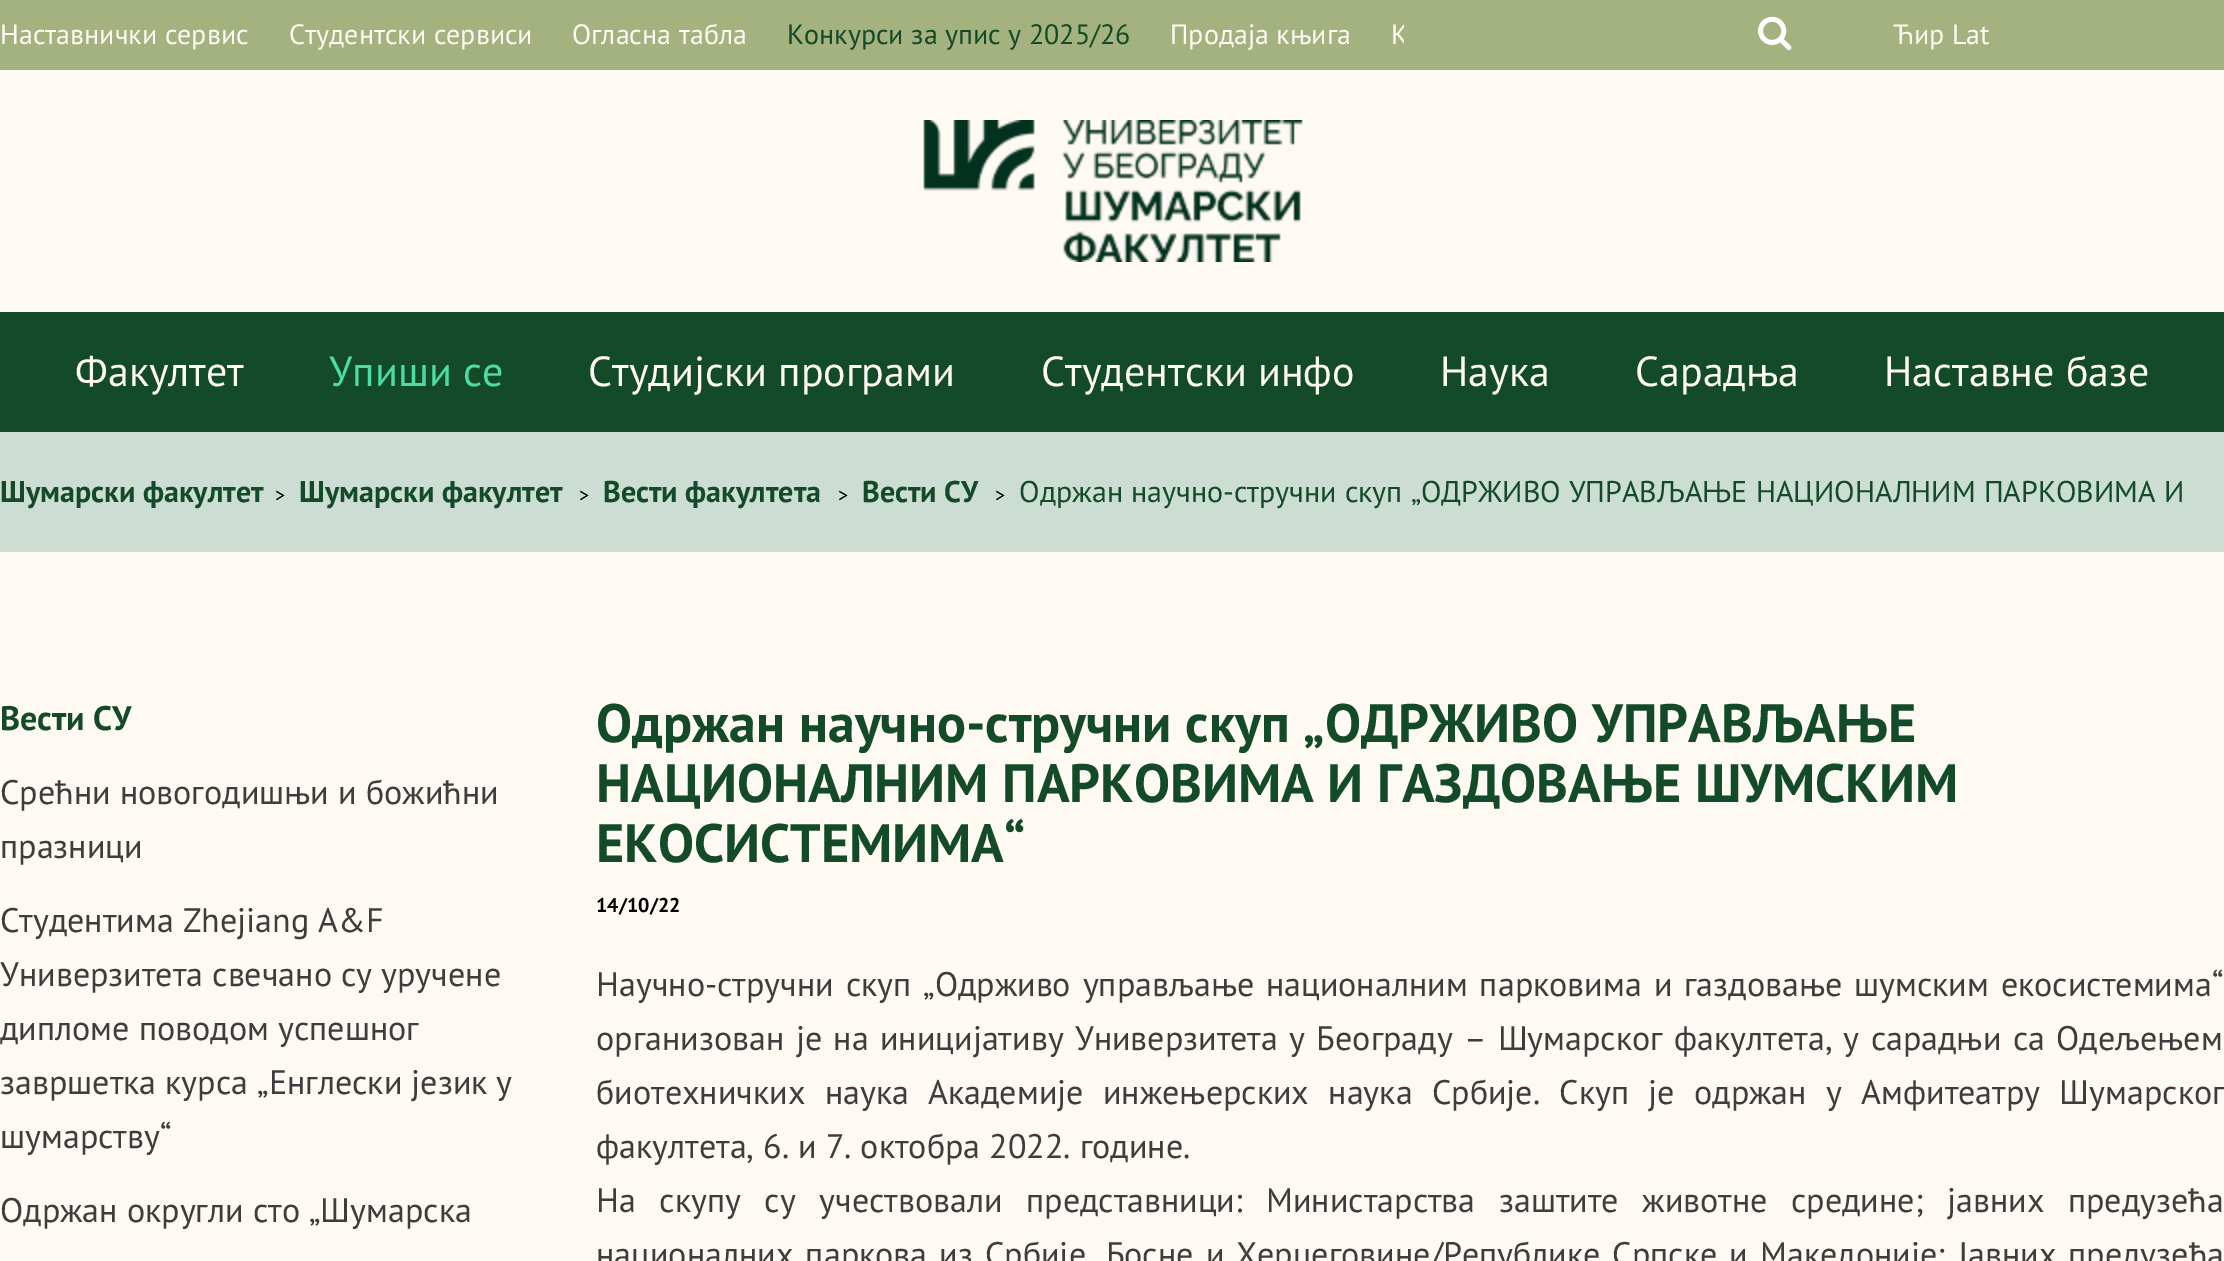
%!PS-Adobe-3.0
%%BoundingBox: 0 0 2224 1261
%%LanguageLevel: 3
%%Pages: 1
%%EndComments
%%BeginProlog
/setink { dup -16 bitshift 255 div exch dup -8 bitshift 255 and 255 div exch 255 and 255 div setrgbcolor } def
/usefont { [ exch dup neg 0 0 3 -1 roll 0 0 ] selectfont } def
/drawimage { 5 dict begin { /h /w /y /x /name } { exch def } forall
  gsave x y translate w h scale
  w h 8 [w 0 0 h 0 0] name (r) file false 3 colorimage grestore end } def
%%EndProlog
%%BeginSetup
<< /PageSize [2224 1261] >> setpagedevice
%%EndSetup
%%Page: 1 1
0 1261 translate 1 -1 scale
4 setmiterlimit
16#FFF9F3 setink
0 0 2224 1261 rectfill
16#A3B27E setink
0 0 2224 70 rectfill
/PTSans-Regular 28 usefont
16#FFF9F3 setink
[
    [(Наставнички сервис) 0 44]
    [(Студентски сервиси) 289 44]
    [(Огласна табла) 572 44]
] { aload pop moveto show } forall
16#134A28 setink
787 44 moveto (Конкурси за упис у 2025/26) show
16#FFF9F3 setink
1170 44 moveto (Продаја књига) show
1391 44 moveto (К) show
16#A3B27E setink
1404 24 4 20 rectfill
(img1.raw) 1758 16 34 35 drawimage
16#FFF9F3 setink
1893 44 moveto (Ћир Lat) show
(img2.raw) 923 120 380 142 drawimage
16#134A28 setink
0 312 2224 120 rectfill
/PTSans-Regular 42 usefont
16#FFF9F3 setink
75 386 moveto (Факултет) show
16#4DDBA6 setink
329 386 moveto (Упиши се) show
16#FFF9F3 setink
[
    [(Студијски програми) 588 386]
    [(Студентски инфо) 1041 386]
    [(Наука) 1440 386]
    [(Сарадња) 1635 386]
    [(Наставне базе) 1884 386]
] { aload pop moveto show } forall
16#CCDDD4 setink
0 432 2224 120 rectfill
/PTSans-Bold 30 usefont
16#134A28 setink
0 502 moveto (Шумарски факултет) show
/PTSans-Regular 20 usefont
16#000000 setink
275 502 moveto (>) show
/PTSans-Bold 30 usefont
16#134A28 setink
299 502 moveto (Шумарски факултет) show
/PTSans-Regular 20 usefont
16#000000 setink
579 502 moveto (>) show
/PTSans-Bold 30 usefont
16#134A28 setink
603 502 moveto (Вести факултета) show
/PTSans-Regular 20 usefont
16#000000 setink
838 502 moveto (>) show
/PTSans-Bold 30 usefont
16#134A28 setink
862 502 moveto (Вести СУ) show
/PTSans-Regular 20 usefont
16#000000 setink
995 502 moveto (>) show
/PTSans-Regular 30 usefont
16#134A28 setink
1019 502 moveto (Одржан научно-стручни скуп „ОДРЖИВО УПРАВЉАЊЕ НАЦИОНАЛНИМ ПАРКОВИМА И) show
/PTSans-Bold 34 usefont
0 730 moveto (Вести СУ) show
/PTSans-Regular 34 usefont
16#3D3D3D setink
[
    [(Срећни новогодишњи и божићни) 0 804]
    [(празници) 0 858]
    [(Студентима Zhejiang A&F) 0 932]
    [(Универзитета свечано су уручене) 0 986]
    [(дипломе поводом успешног) 0 1040]
    [(завршетка курса „Енглески језик у) 0 1094]
    [(шумарству“) 0 1148]
    [(Одржан округли сто „Шумарска) 0 1222]
] { aload pop moveto show } forall
/PTSans-Bold 54 usefont
16#134A28 setink
[
    [(Одржан научно-стручни скуп „ОДРЖИВО УПРАВЉАЊЕ) 596 742]
    [(НАЦИОНАЛНИМ ПАРКОВИМА И ГАЗДОВАЊЕ ШУМСКИМ) 596 802]
    [(ЕКОСИСТЕМИМА“) 596 862]
] { aload pop moveto show } forall
/PTSans-Bold 20 usefont
16#000000 setink
596 912 moveto (14/10/22) show
/PTSans-Regular 34 usefont
16#3D3D3D setink
596 996 moveto 2.75 0 32 (Научно-стручни скуп „Одрживо управљање националним парковима и газдовање шумским екосистемима“) widthshow
596 1050 moveto 2.25 0 32 (организован је на иницијативу Универзитета у Београду – Шумарског факултета, у сарадњи са Одељењем) widthshow
596 1104 moveto 10.25 0 32 (биотехничких наука Академије инжењерских наука Србије. Скуп је одржан у Амфитеатру Шумарског) widthshow
596 1158 moveto (факултета, 6. и 7. октобра 2022. године.) show
596 1212 moveto 14.5 0 32 (На скупу су учествовали представници: Министарства заштите животне средине; јавних предузећа) widthshow
596 1266 moveto 3 0 32 (националних паркова из Србије, Босне и Херцеговине/Републике Српске и Македоније; Јавних предузећа) widthshow
showpage
%%EOF
